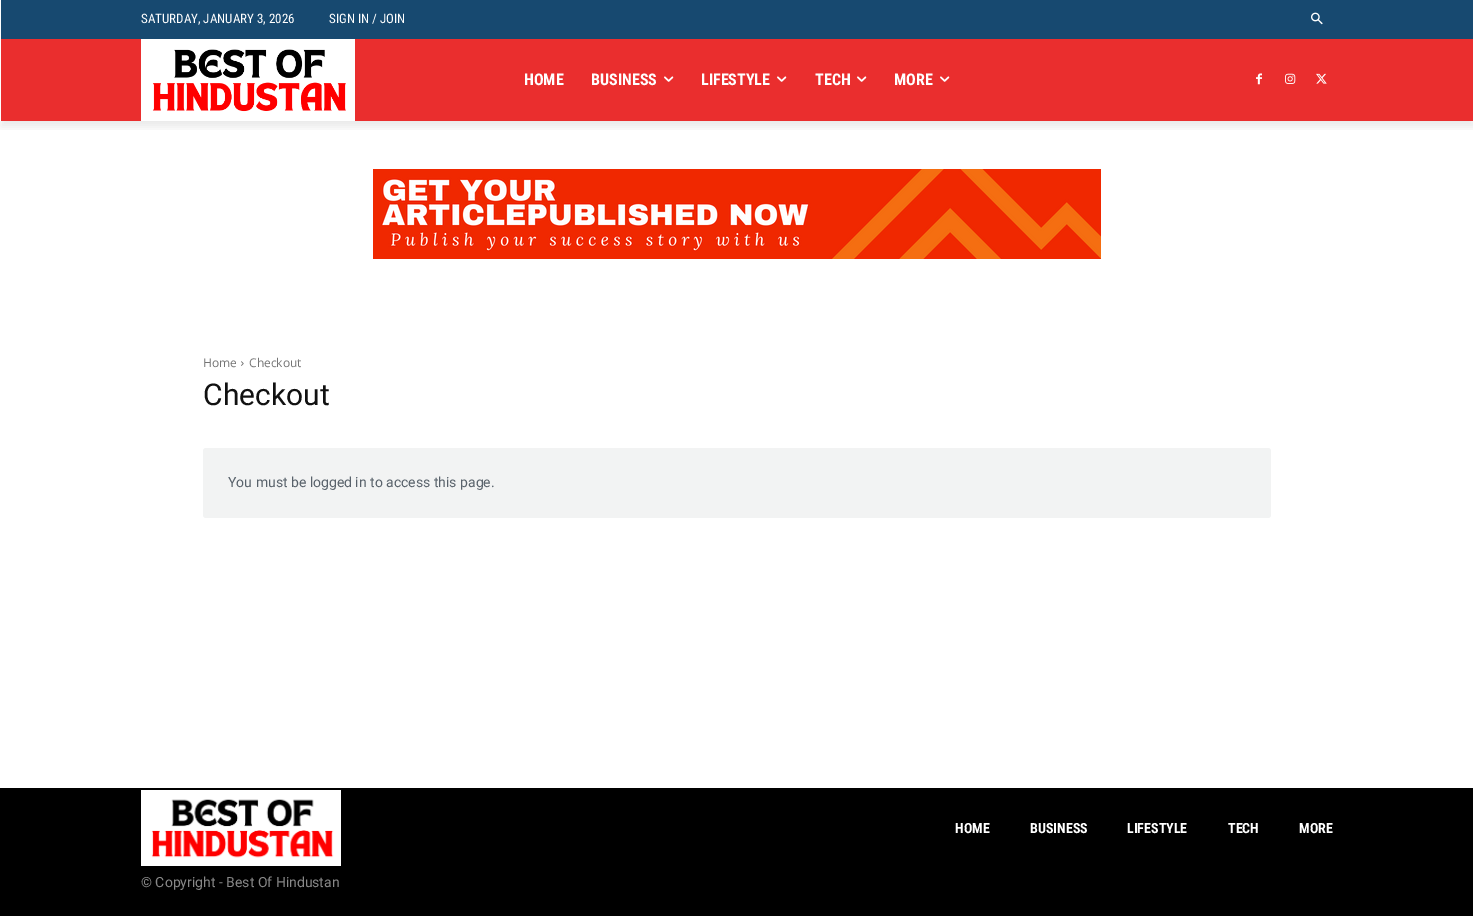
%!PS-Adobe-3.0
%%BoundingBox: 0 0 1473 916
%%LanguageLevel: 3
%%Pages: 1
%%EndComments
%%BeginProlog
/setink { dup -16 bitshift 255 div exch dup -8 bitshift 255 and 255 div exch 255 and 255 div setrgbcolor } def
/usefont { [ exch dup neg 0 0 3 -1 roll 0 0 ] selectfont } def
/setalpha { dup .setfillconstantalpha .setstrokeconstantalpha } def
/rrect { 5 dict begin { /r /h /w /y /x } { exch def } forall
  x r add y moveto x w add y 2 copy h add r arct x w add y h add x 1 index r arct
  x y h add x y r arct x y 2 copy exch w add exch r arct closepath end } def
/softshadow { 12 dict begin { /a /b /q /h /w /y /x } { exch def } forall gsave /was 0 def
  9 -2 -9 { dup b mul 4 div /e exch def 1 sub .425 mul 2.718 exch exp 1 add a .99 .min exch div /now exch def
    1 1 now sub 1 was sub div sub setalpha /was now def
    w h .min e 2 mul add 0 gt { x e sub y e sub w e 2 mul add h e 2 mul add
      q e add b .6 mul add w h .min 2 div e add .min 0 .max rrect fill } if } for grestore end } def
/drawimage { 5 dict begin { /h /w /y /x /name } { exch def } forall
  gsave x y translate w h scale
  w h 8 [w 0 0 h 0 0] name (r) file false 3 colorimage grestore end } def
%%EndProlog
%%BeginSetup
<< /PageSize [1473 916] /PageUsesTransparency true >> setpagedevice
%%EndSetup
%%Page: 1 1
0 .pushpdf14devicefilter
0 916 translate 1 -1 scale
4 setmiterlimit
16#FFFFFF setink
0 0 1473 916 rectfill
16#174970 setink
1 0 1472 39 rectfill
/RobotoCondensed-Regular 13 usefont
16#FFFFFF setink
141 23 moveto (SATURDAY, JANUARY 3, 2026) show
329 23 moveto (SIGN IN / JOIN) show
(img1.raw) 1311 12 12 13 drawimage
16#EA2E2E setink
1 39 1472 82 rectfill
(img2.raw) 141 39 214 82 drawimage
(img4.raw) 1256 73 6 12 drawimage
(img5.raw) 1285 73 11 11 drawimage
(img6.raw) 1316 73 11 11 drawimage
gsave
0 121 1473 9 rectclip
16#000000 setink
1 45 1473 82 0 4 0.08 softshadow
grestore
/RobotoCondensed-Bold 16 usefont
16#FFFFFF setink
524 85 moveto (HOME) show
591 85 moveto (BUSINESS) show
(img3.raw) 664 76 10 6 drawimage
701 85 moveto (LIFESTYLE) show
(img3.raw) 777 76 10 6 drawimage
815 85 moveto (TECH) show
(img3.raw) 857 76 10 6 drawimage
894 85 moveto (MORE) show
(img3.raw) 940 76 10 6 drawimage
(img7.raw) 373 169 728 90 drawimage
/OpenSans-Regular 12 usefont
16#747474 setink
203 367 moveto (Home) show
(img8.raw) 241 361 3 5 drawimage
249 367 moveto (Checkout) show
/Roboto-Regular 30 usefont
16#111111 setink
203 405 moveto (Checkout) show
16#F2F3F3 setink
203 448 1068 70 3 rrect fill
/Roboto-Regular 14 usefont
16#59626B setink
228 487 moveto (You must be logged in to access this page.) show
16#000000 setink
0 788 1473 128 rectfill
(img9.raw) 141 790 200 76 drawimage
/RobotoCondensed-Bold 14 usefont
16#FFFFFF setink
[
    [(HOME) 955 833]
    [(BUSINESS) 1030 833]
    [(LIFESTYLE) 1127 833]
    [(TECH) 1228 833]
    [(MORE) 1299 833]
] { aload pop moveto show } forall
/Roboto-Regular 14 usefont
16#888888 setink
141 887 moveto (© Copyright - Best Of Hindustan) show
.poppdf14devicefilter showpage
%%EOF
